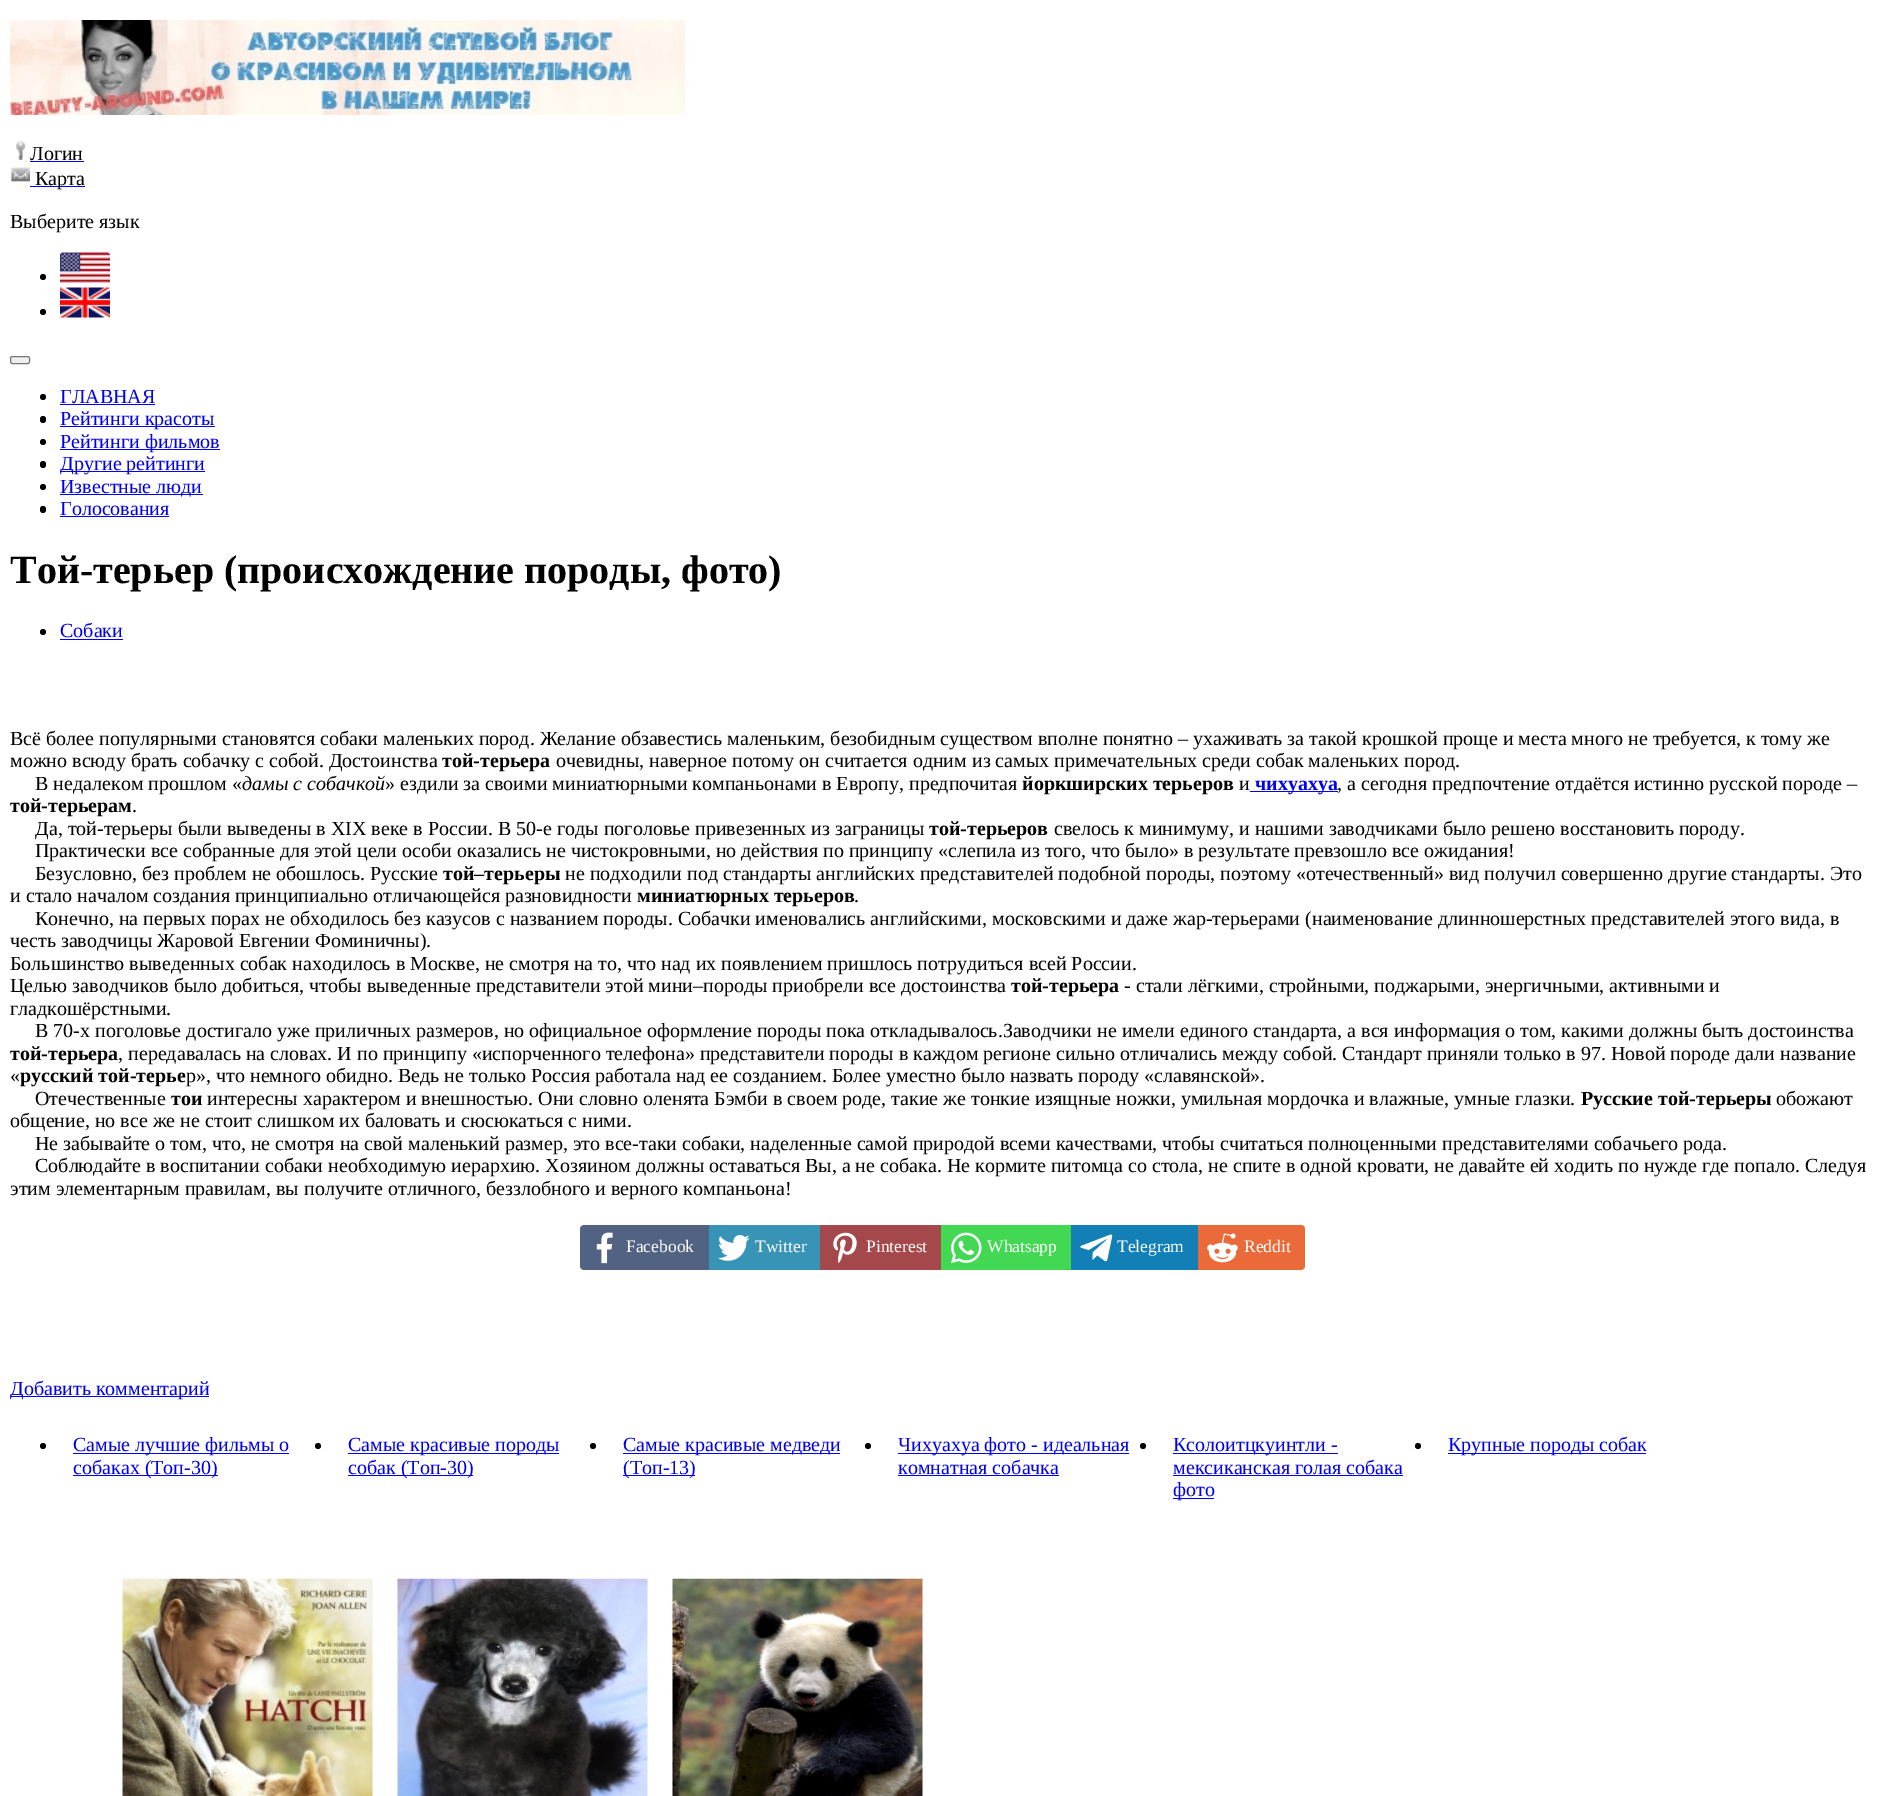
%!PS-Adobe-3.0
%%BoundingBox: 0 0 1885 1796
%%LanguageLevel: 3
%%Pages: 1
%%EndComments
%%BeginProlog
/setink { dup -16 bitshift 255 div exch dup -8 bitshift 255 and 255 div exch 255 and 255 div setrgbcolor } def
/usefont { [ exch dup neg 0 0 3 -1 roll 0 0 ] selectfont } def
/disc { newpath 0 360 arc closepath } def
/rrect { 5 dict begin { /r /h /w /y /x } { exch def } forall
  x r add y moveto x w add y 2 copy h add r arct x w add y h add x 1 index r arct
  x y h add x y r arct x y 2 copy exch w add exch r arct closepath end } def
/drawimage { 5 dict begin { /h /w /y /x /name } { exch def } forall
  gsave x y translate w h scale
  w h 8 [w 0 0 h 0 0] name (r) file false 3 colorimage grestore end } def
%%EndProlog
%%BeginSetup
<< /PageSize [1885 1796] >> setpagedevice
%%EndSetup
%%Page: 1 1
0 1796 translate 1 -1 scale
4 setmiterlimit
16#FFFFFF setink
0 0 1885 1796 rectfill
(img1.raw) 10 20 675 95 drawimage
(img2.raw) 16 141 10 19 drawimage
/LiberationSerif-Regular 20 usefont
16#000000 setink
30 160 moveto (Логин) show
16#0000EE setink
30 161 54 1 rectfill
(img3.raw) 11 167 19 15 drawimage
30 186 55 1 rectfill
16#000000 setink
35 185 moveto (Карта) show
10 228 moveto (Выберите язык) show
43 277 3 disc fill
(img4.raw) 60 252 50 31 drawimage
43 312 3 disc fill
(img5.raw) 60 287 50 31 drawimage
16#EFEFEF setink
10.5 356.5 19 7 2 rrect gsave fill grestore
16#767676 setink
stroke
16#000000 setink
43 397 3 disc fill
16#0000EE setink
60 403 moveto (ГЛАВНАЯ) show
60 404 95 1 rectfill
16#000000 setink
40 416 6 7 3 rrect fill
16#0000EE setink
60 426 155 1 rectfill
60 425 moveto (Рейтинги красоты) show
16#000000 setink
43 442 3 disc fill
16#0000EE setink
60 449 160 1 rectfill
60 448 moveto (Рейтинги фильмов) show
16#000000 setink
40 461 6 7 3 rrect fill
16#0000EE setink
60 471 145 1 rectfill
60 470 moveto (Другие рейтинги) show
16#000000 setink
43 487 3 disc fill
16#0000EE setink
60 494 143 1 rectfill
60 493 moveto (Известные люди) show
16#000000 setink
40 506 6 7 3 rrect fill
16#0000EE setink
60 515 moveto (Голосования) show
60 516 109 1 rectfill
/LiberationSerif-Bold 40 usefont
16#000000 setink
10 583 moveto (Той-терьер \(происхождение породы, фото\)) show
43 632 3 disc fill
/LiberationSerif-Regular 20 usefont
16#0000EE setink
60 637 moveto (Собаки) show
60 639 63 1 rectfill
16#000000 setink
10 745 moveto (Всё более популярными становятся собаки маленьких пород. Желание обзавестись маленьким, безобидным существом вполне понятно – ухаживать за такой крошкой проще и места много не требуется, к тому же) show
10 767 moveto (можно всюду брать собачку с собой. Достоинства) show
/LiberationSerif-Bold 20 usefont
442 767 moveto (той-терьера) show
/LiberationSerif-Regular 20 usefont
556 767 moveto (очевидны, наверное потому он считается одним из самых примечательных среди собак маленьких пород.) show
35 790 moveto (В недалеком прошлом «) show
/LiberationSerif-Italic 20 usefont
242 790 moveto (дамы с собачкой) show
/LiberationSerif-Regular 20 usefont
385 790 moveto (» ездили за своими миниатюрными компаньонами в Европу, предпочитая) show
/LiberationSerif-Bold 20 usefont
1022 790 moveto (йоркширских терьеров) show
/LiberationSerif-Regular 20 usefont
1239 790 moveto (и) show
16#0000EE setink
1250 791 88 1 rectfill
/LiberationSerif-Bold 20 usefont
1255 790 moveto (чихуахуа) show
/LiberationSerif-Regular 20 usefont
16#000000 setink
1337 790 moveto (, а сегодня предпочтение отдаётся истинно русской породе –) show
/LiberationSerif-Bold 20 usefont
10 812 moveto (той-терьерам) show
/LiberationSerif-Regular 20 usefont
132 812 moveto (.) show
35 835 moveto (Да, той-терьеры были выведены в XIX веке в России. В 50-е годы поголовье привезенных из заграницы) show
/LiberationSerif-Bold 20 usefont
929 835 moveto (той-терьеров) show
/LiberationSerif-Regular 20 usefont
[
    [(свелось к минимуму, и нашими заводчиками было решено восстановить породу.) 1054 835]
    [(Практически все собранные для этой цели особи оказались не чистокровными, но действия по принципу «слепила из того, что было» в результате превзошло все ожидания!) 35 857]
    [(Безусловно, без проблем не обошлось. Русские) 35 880]
] { aload pop moveto show } forall
/LiberationSerif-Bold 20 usefont
443 880 moveto (той–терьеры) show
/LiberationSerif-Regular 20 usefont
565 880 moveto (не подходили под стандарты английских представителей подобной породы, поэтому «отечественный» вид получил совершенно другие стандарты. Это) show
10 902 moveto (и стало началом создания принципиально отличающейся разновидности) show
/LiberationSerif-Bold 20 usefont
637 902 moveto (миниатюрных терьеров) show
/LiberationSerif-Regular 20 usefont
[
    [(.) 854 902]
    [(Конечно, на первых порах не обходилось без казусов с названием породы. Собачки именовались английскими, московскими и даже жар-терьерами \(наименование длинношерстных представителей этого вида, в) 35 925]
    [(честь заводчицы Жаровой Евгении Фоминичны\).) 10 947]
    [(Большинство выведенных собак находилось в Москве, не смотря на то, что над их появлением пришлось потрудиться всей России.) 10 970]
    [(Целью заводчиков было добиться, чтобы выведенные представители этой мини–породы приобрели все достоинства) 10 992]
] { aload pop moveto show } forall
/LiberationSerif-Bold 20 usefont
1011 992 moveto (той-терьера) show
/LiberationSerif-Regular 20 usefont
[
    [(- стали лёгкими, стройными, поджарыми, энергичными, активными и) 1124 992]
    [(гладкошёрстными.) 10 1015]
    [(В 70-х поголовье достигало уже приличных размеров, но официальное оформление породы пока откладывалось.Заводчики не имели единого стандарта, а вся информация о том, какими должны быть достоинства) 35 1037]
] { aload pop moveto show } forall
/LiberationSerif-Bold 20 usefont
10 1060 moveto (той-терьера) show
/LiberationSerif-Regular 20 usefont
118 1060 moveto (, передавалась на словах. И по принципу «испорченного телефона» представители породы в каждом регионе сильно отличались между собой. Стандарт приняли только в 97. Новой породе дали название) show
10 1082 moveto («) show
/LiberationSerif-Bold 20 usefont
20 1082 moveto (русский той-терье) show
/LiberationSerif-Regular 20 usefont
186 1082 moveto (р», что немного обидно. Ведь не только Россия работала над ее созданием. Более уместно было назвать породу «славянской».) show
35 1105 moveto (Отечественные) show
/LiberationSerif-Bold 20 usefont
171 1105 moveto (тои) show
/LiberationSerif-Regular 20 usefont
207 1105 moveto (интересны характером и внешностью. Они словно оленята Бэмби в своем роде, такие же тонкие изящные ножки, умильная мордочка и влажные, умные глазки.) show
/LiberationSerif-Bold 20 usefont
1581 1105 moveto (Русские той-терьеры) show
/LiberationSerif-Regular 20 usefont
[
    [(обожают) 1776 1105]
    [(общение, но все же не стоит слишком их баловать и сюсюкаться с ними.) 10 1127]
    [(Не забывайте о том, что, не смотря на свой маленький размер, это все-таки собаки, наделенные самой природой всеми качествами, чтобы считаться полноценными представителями собачьего рода.) 35 1150]
    [(Соблюдайте в воспитании собаки необходимую иерархию. Хозяином должны оставаться Вы, а не собака. Не кормите питомца со стола, не спите в одной кровати, не давайте ей ходить по нужде где попало. Следуя) 35 1172]
    [(этим элементарным правилам, вы получите отличного, беззлобного и верного компаньона!) 10 1195]
] { aload pop moveto show } forall
16#526282 setink
584 1225 moveto 709 1225 lineto 709 1270 lineto 584 1270 lineto 582 1270 580 1268 580 1266 curveto 580 1229 lineto 580 1227 582 1225 584 1225 curveto closepath fill
(img6.raw) 596 1232 17 32 drawimage
/LiberationSerif-Regular 17.5 usefont
16#FFFFFF setink
626 1252 moveto (Facebook) show
16#3894B6 setink
709 1225 111 45 rectfill
(img7.raw) 718 1235 32 26 drawimage
16#FFFFFF setink
755 1252 moveto (Twitter) show
16#A4484C setink
820 1225 121 45 rectfill
(img8.raw) 833 1232 24 32 drawimage
16#FFFFFF setink
866 1252 moveto (Pinterest) show
16#43D854 setink
941 1225 130 45 rectfill
(img9.raw) 951 1232 31 32 drawimage
16#FFFFFF setink
987 1252 moveto (Whatsapp) show
16#127FB6 setink
1071 1225 127 45 rectfill
(img10.raw) 1080 1234 33 28 drawimage
16#FFFFFF setink
1117 1252 moveto (Telegram) show
16#EA6A3A setink
1198 1225 moveto 1301 1225 lineto 1303 1225 1305 1227 1305 1229 curveto 1305 1266 lineto 1305 1268 1303 1270 1301 1270 curveto 1198 1270 lineto closepath fill
(img11.raw) 1207 1233 31 30 drawimage
16#FFFFFF setink
1244 1252 moveto (Reddit) show
16#0000EE setink
10 1396 199 1 rectfill
/LiberationSerif-Regular 20 usefont
10 1395 moveto (Добавить комментарий) show
16#000000 setink
43 1446 3 disc fill
16#0000EE setink
73 1453 216 1 rectfill
73 1451 moveto (Самые лучшие фильмы о) show
73 1475 145 1 rectfill
73 1474 moveto (собаках \(Топ-30\)) show
(img12.raw) 122 1578 251 218 drawimage
16#000000 setink
318 1446 3 disc fill
16#0000EE setink
348 1453 211 1 rectfill
348 1451 moveto (Самые красивые породы) show
348 1475 125 1 rectfill
348 1474 moveto (собак \(Топ-30\)) show
(img13.raw) 397 1578 251 218 drawimage
16#000000 setink
593 1446 3 disc fill
16#0000EE setink
623 1453 217 1 rectfill
623 1451 moveto (Самые красивые медведи) show
623 1475 72 1 rectfill
623 1474 moveto (\(Топ-13\)) show
(img14.raw) 672 1578 251 218 drawimage
16#000000 setink
868 1446 3 disc fill
16#0000EE setink
898 1453 231 1 rectfill
898 1451 moveto (Чихуахуа фото - идеальная) show
898 1474 moveto (комнатная собачка) show
898 1475 161 1 rectfill
16#000000 setink
1143 1446 3 disc fill
16#0000EE setink
1173 1453 165 1 rectfill
1173 1451 moveto (Ксолоитцкуинтли -) show
1173 1474 moveto (мексиканская голая собака) show
1173 1475 230 1 rectfill
1173 1498 41 1 rectfill
1173 1496 moveto (фото) show
16#000000 setink
1418 1446 3 disc fill
16#0000EE setink
1448 1453 198 1 rectfill
1448 1451 moveto (Крупные породы собак) show
showpage
%%EOF
